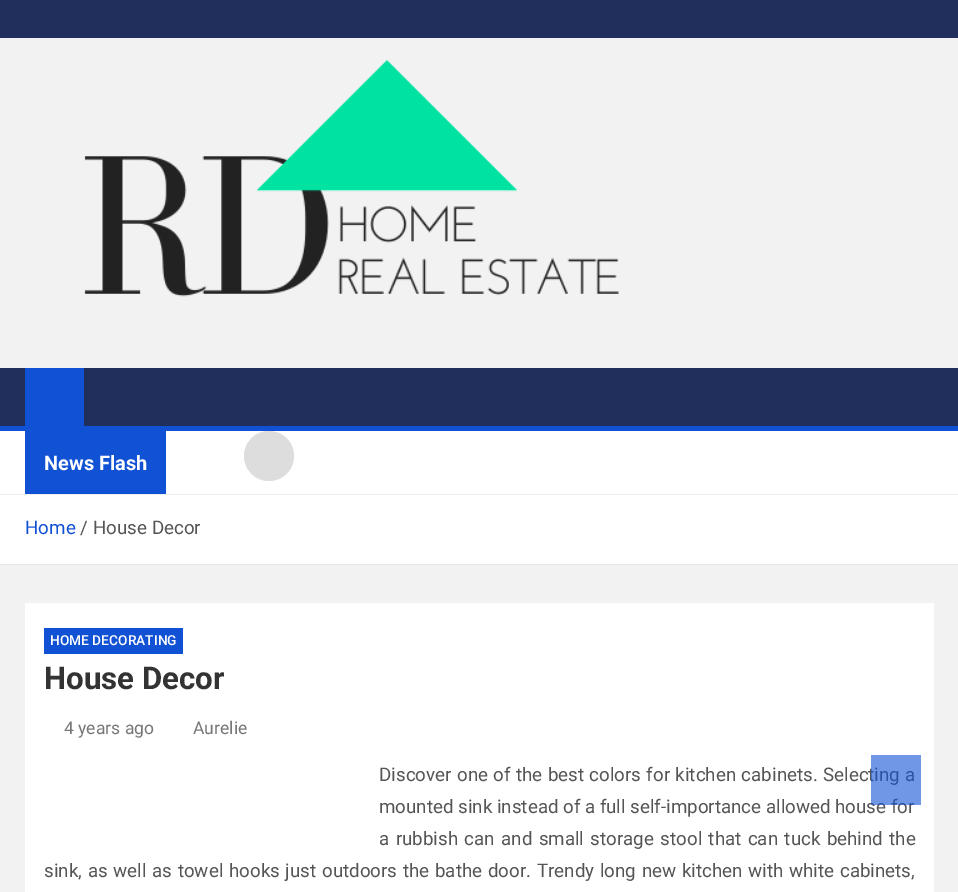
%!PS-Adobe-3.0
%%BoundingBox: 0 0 958 892
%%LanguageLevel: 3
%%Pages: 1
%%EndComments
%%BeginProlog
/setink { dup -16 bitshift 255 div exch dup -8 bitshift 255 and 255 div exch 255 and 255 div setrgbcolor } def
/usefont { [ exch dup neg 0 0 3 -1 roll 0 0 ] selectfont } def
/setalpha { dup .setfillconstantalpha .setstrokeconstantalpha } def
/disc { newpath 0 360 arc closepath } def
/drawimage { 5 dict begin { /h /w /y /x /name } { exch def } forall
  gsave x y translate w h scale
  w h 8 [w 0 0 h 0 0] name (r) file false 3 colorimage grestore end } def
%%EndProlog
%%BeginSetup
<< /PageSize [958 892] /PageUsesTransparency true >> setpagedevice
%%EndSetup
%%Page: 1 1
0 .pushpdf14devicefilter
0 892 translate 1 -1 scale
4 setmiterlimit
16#F2F2F2 setink
0 0 958 892 rectfill
16#202F5B setink
0 0 958 38 rectfill
(img1.raw) 84 59 535 238 drawimage
[
    [0 368 958 58 16#202F5B]
    [25 368 59 58 16#1151D3]
    [0 426 958 5 16#1151D3]
] { aload pop setink rectfill } forall
16#EDEDED setink
0 494 moveto 0 495 lineto 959 495 lineto 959 433 lineto 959 494 lineto closepath fill
16#FFFFFF setink
0 431 958 63 rectfill
16#1151D3 setink
25 431 141 63 rectfill
/Roboto-Bold 20 usefont
16#FFFFFF setink
44 470 moveto (News Flash) show
16#DDDDDD setink
269 456 25 disc fill
16#FFFFFF setink
0 495 958 69 rectfill
16#E6E6E6 setink
0 564 958 1 rectfill
/Roboto-Regular 18.75 usefont
16#1151D3 setink
25 534 moveto (Home) show
16#555555 setink
80 534 moveto (/) show
93 534 moveto (House Decor) show
16#FFFFFF setink
25 603 909 289 rectfill
16#1151D3 setink
44 628 139 26 rectfill
/Roboto-Medium 13.75 usefont
16#FFFFFF setink
50 645 moveto (HOME DECORATING) show
/Roboto-Bold 31.25 usefont
16#333333 setink
44 689 moveto (House Decor) show
/Roboto-Regular 17.5 usefont
16#777777 setink
64 734 moveto (4 years ago) show
193 734 moveto (Aurelie) show
/Roboto-Regular 18.75 usefont
16#555555 setink
379 781 moveto 0.75 0 32 (Discover one of the best colors for kitchen cabinets. Selecting a) widthshow
379 813 moveto (mounted sink instead of a full self-importance allowed house for) show
379 845 moveto 1.75 0 32 (a rubbish can and small storage stool that can tuck behind the) widthshow
44 877 moveto 1.1 0 32 (sink, as well as towel hooks just outdoors the bathe door. Trendy long new kitchen with white cabinets,) widthshow
0.6 setalpha
16#1151D3 setink
871 755 50 50 rectfill
.poppdf14devicefilter showpage
%%EOF
